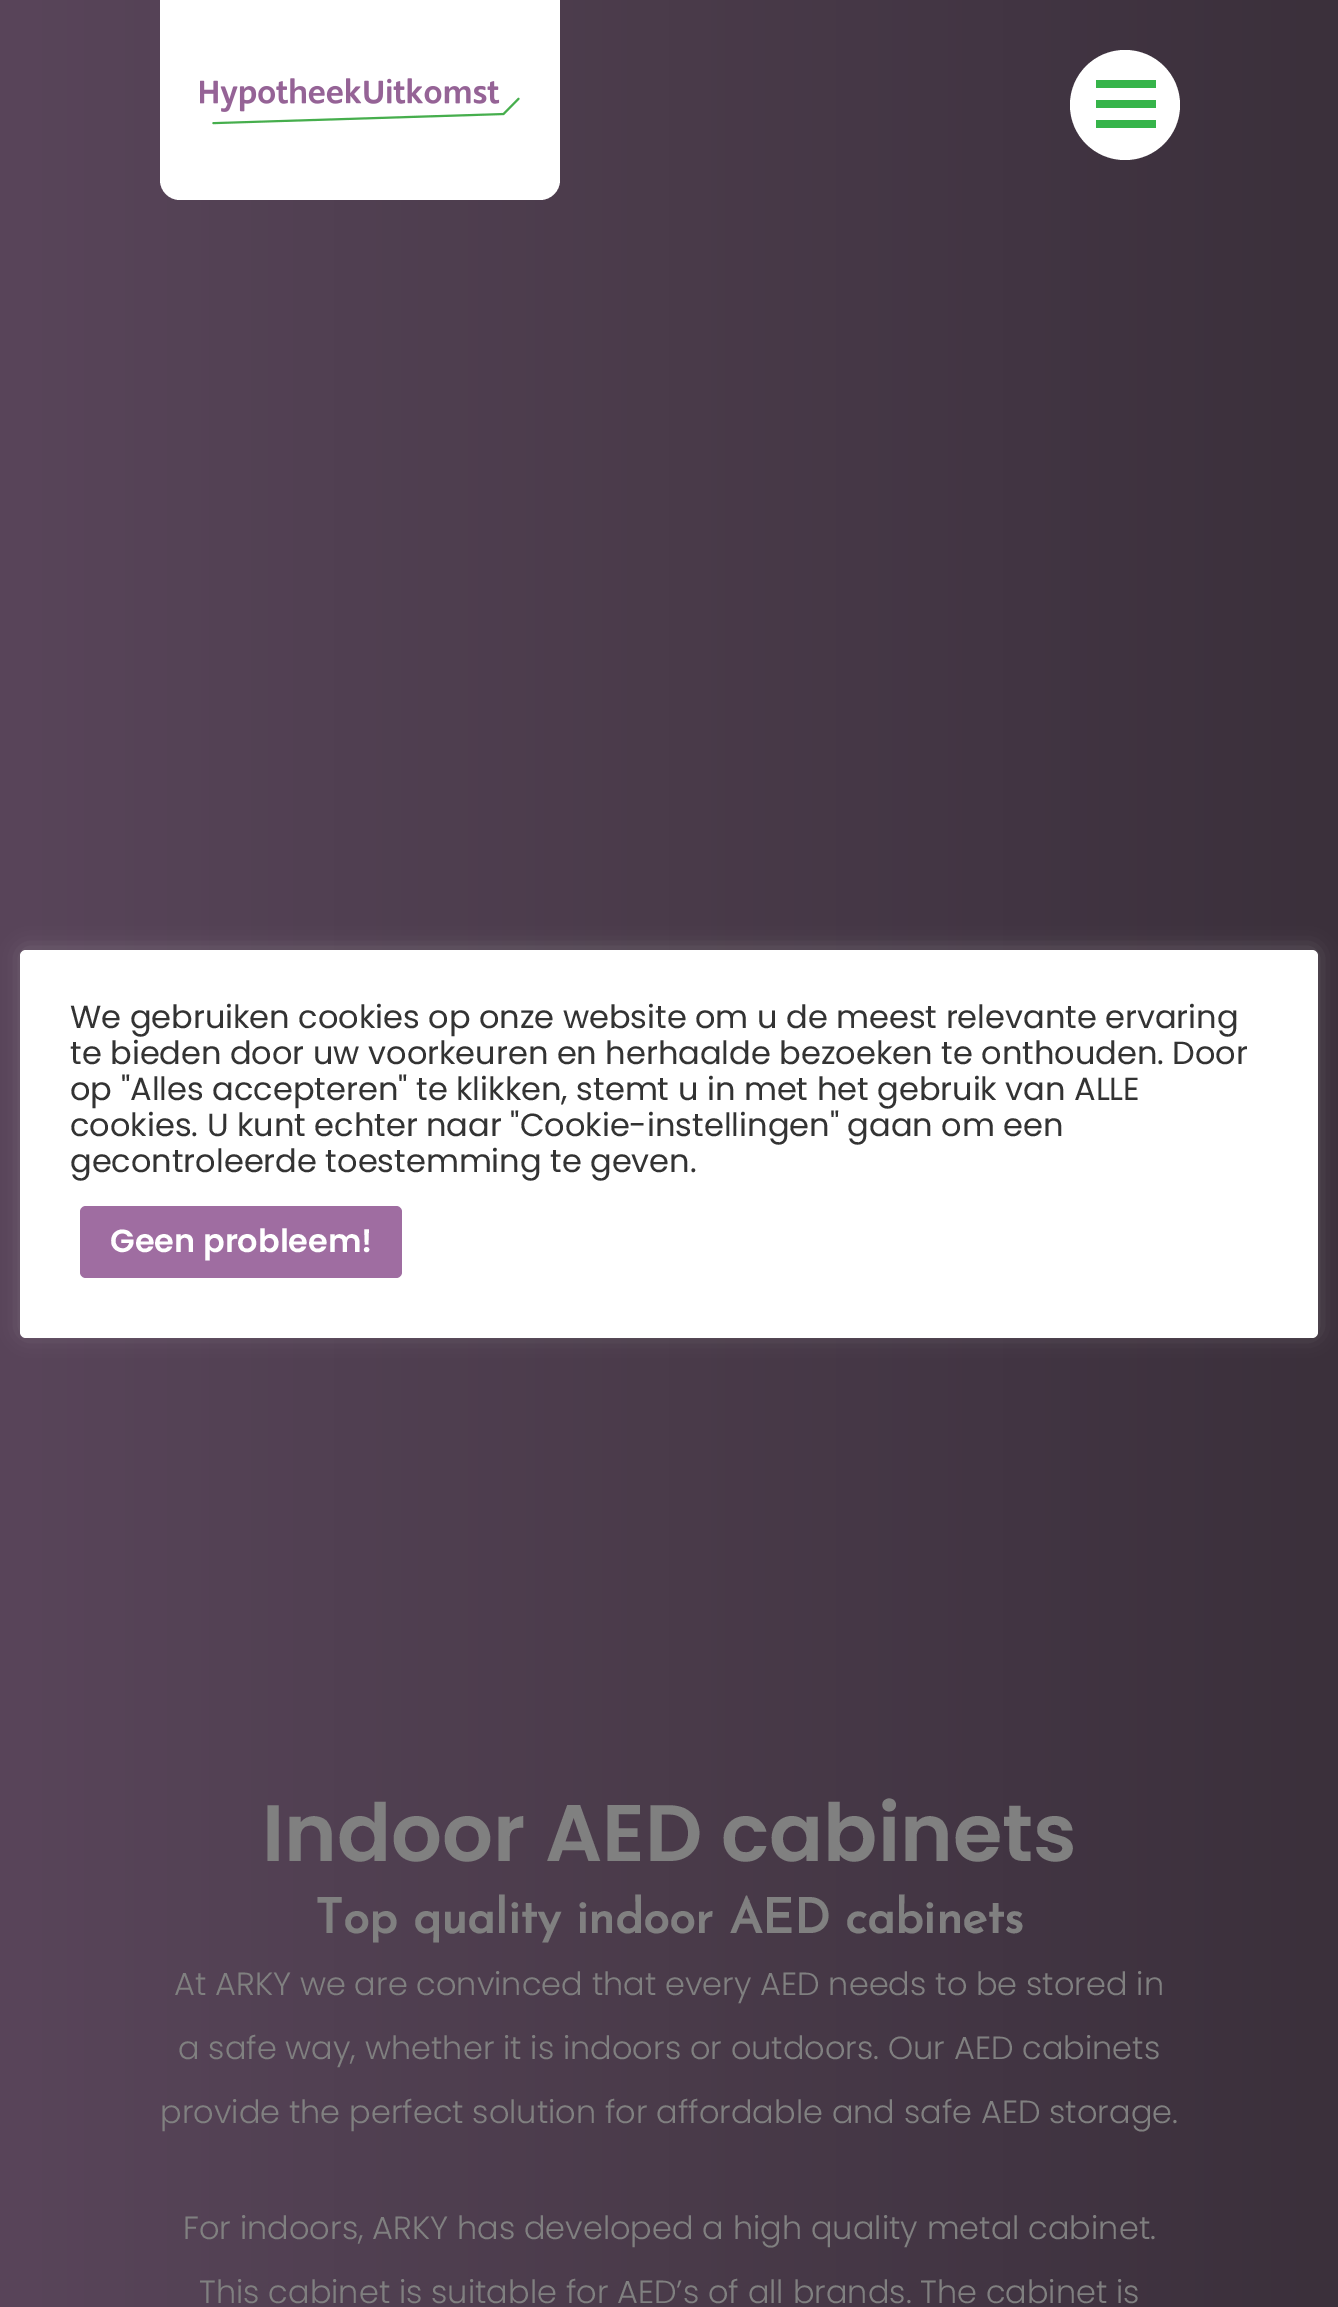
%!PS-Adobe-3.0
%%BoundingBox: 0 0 1338 2307
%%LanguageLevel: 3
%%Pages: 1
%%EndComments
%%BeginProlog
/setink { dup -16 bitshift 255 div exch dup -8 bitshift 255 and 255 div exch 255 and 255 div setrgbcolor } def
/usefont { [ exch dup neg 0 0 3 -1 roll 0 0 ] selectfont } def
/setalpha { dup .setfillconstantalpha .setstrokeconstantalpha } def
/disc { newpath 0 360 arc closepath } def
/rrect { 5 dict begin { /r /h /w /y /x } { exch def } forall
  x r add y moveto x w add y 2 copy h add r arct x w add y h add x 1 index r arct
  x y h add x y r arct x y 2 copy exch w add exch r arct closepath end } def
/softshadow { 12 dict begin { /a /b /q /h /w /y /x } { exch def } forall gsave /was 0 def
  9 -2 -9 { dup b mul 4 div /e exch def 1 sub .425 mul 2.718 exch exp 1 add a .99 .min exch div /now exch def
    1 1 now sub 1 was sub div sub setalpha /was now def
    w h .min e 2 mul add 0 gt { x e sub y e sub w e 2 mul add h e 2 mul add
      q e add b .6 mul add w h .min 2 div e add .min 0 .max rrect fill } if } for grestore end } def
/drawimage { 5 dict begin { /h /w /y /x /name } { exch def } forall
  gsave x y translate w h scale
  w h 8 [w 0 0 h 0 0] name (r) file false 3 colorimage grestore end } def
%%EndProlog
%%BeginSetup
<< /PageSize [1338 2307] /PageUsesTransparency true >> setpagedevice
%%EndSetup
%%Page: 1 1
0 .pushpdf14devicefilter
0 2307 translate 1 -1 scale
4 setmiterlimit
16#FFFFFF setink
0 0 1338 2307 rectfill
gsave 0 0 moveto 1338 0 lineto 1338 2307 lineto 0 2307 lineto closepath clip newpath
<< /ShadingType 2 /ColorSpace /DeviceRGB /Coords [0 1200 1338 1200] /Extend [true true] /Function << /FunctionType 2 /Domain [0 1] /C0 [0.349 0.271 0.353] /C1 [0.231 0.188 0.231] /N 1 >> >> shfill grestore
160 0 moveto 560 0 lineto 560 180 lineto 560 191 551 200 540 200 curveto 180 200 lineto 169 200 160 191 160 180 curveto closepath fill
(img1.raw) 200 78 320 47 drawimage
1125 105 55 disc fill
[
    [1096 80 60 8 16#36B44A]
    [1096 100 60 8 16#36B44A]
    [1096 120 60 8 16#36B44A]
] { aload pop setink rectfill } forall
16#ACABAB setink
20 948 1298 388 6 10 0.3 softshadow
16#FFFFFF setink
20 950 1298 388 6 rrect fill
/Poppins-Regular 32 usefont
16#333333 setink
[
    [(We gebruiken cookies op onze website om u de meest relevante ervaring) 70 1028]
    [(te bieden door uw voorkeuren en herhaalde bezoeken te onthouden. Door) 70 1064]
    [(op "Alles accepteren" te klikken, stemt u in met het gebruik van ALLE) 70 1100]
    [(cookies. U kunt echter naar "Cookie-instellingen" gaan om een) 70 1136]
    [(gecontroleerde toestemming te geven.) 70 1172]
] { aload pop moveto show } forall
16#9F6DA1 setink
80 1206 322 72 6 rrect fill
/Poppins-SemiBold 32 usefont
16#FFFFFF setink
110 1252 moveto (Geen probleem!) show
/Poppins-SemiBold 80 usefont
16#808080 setink
262 1861 moveto (Indoor AED cabinets) show
/JosefinSans-Bold 48 usefont
315 1933 moveto (Top quality indoor AED cabinets) show
/Poppins-Light 32 usefont
[
    [(At ARKY we are convinced that every AED needs to be stored in) 174 1995]
    [(a safe way, whether it is indoors or outdoors. Our AED cabinets) 178 2059]
    [(provide the perfect solution for affordable and safe AED storage.) 160 2123]
    [(For indoors, ARKY has developed a high quality metal cabinet.) 183 2239]
    [(This cabinet is suitable for AED’s of all brands. The cabinet is) 199 2303]
] { aload pop moveto show } forall
.poppdf14devicefilter showpage
%%EOF
